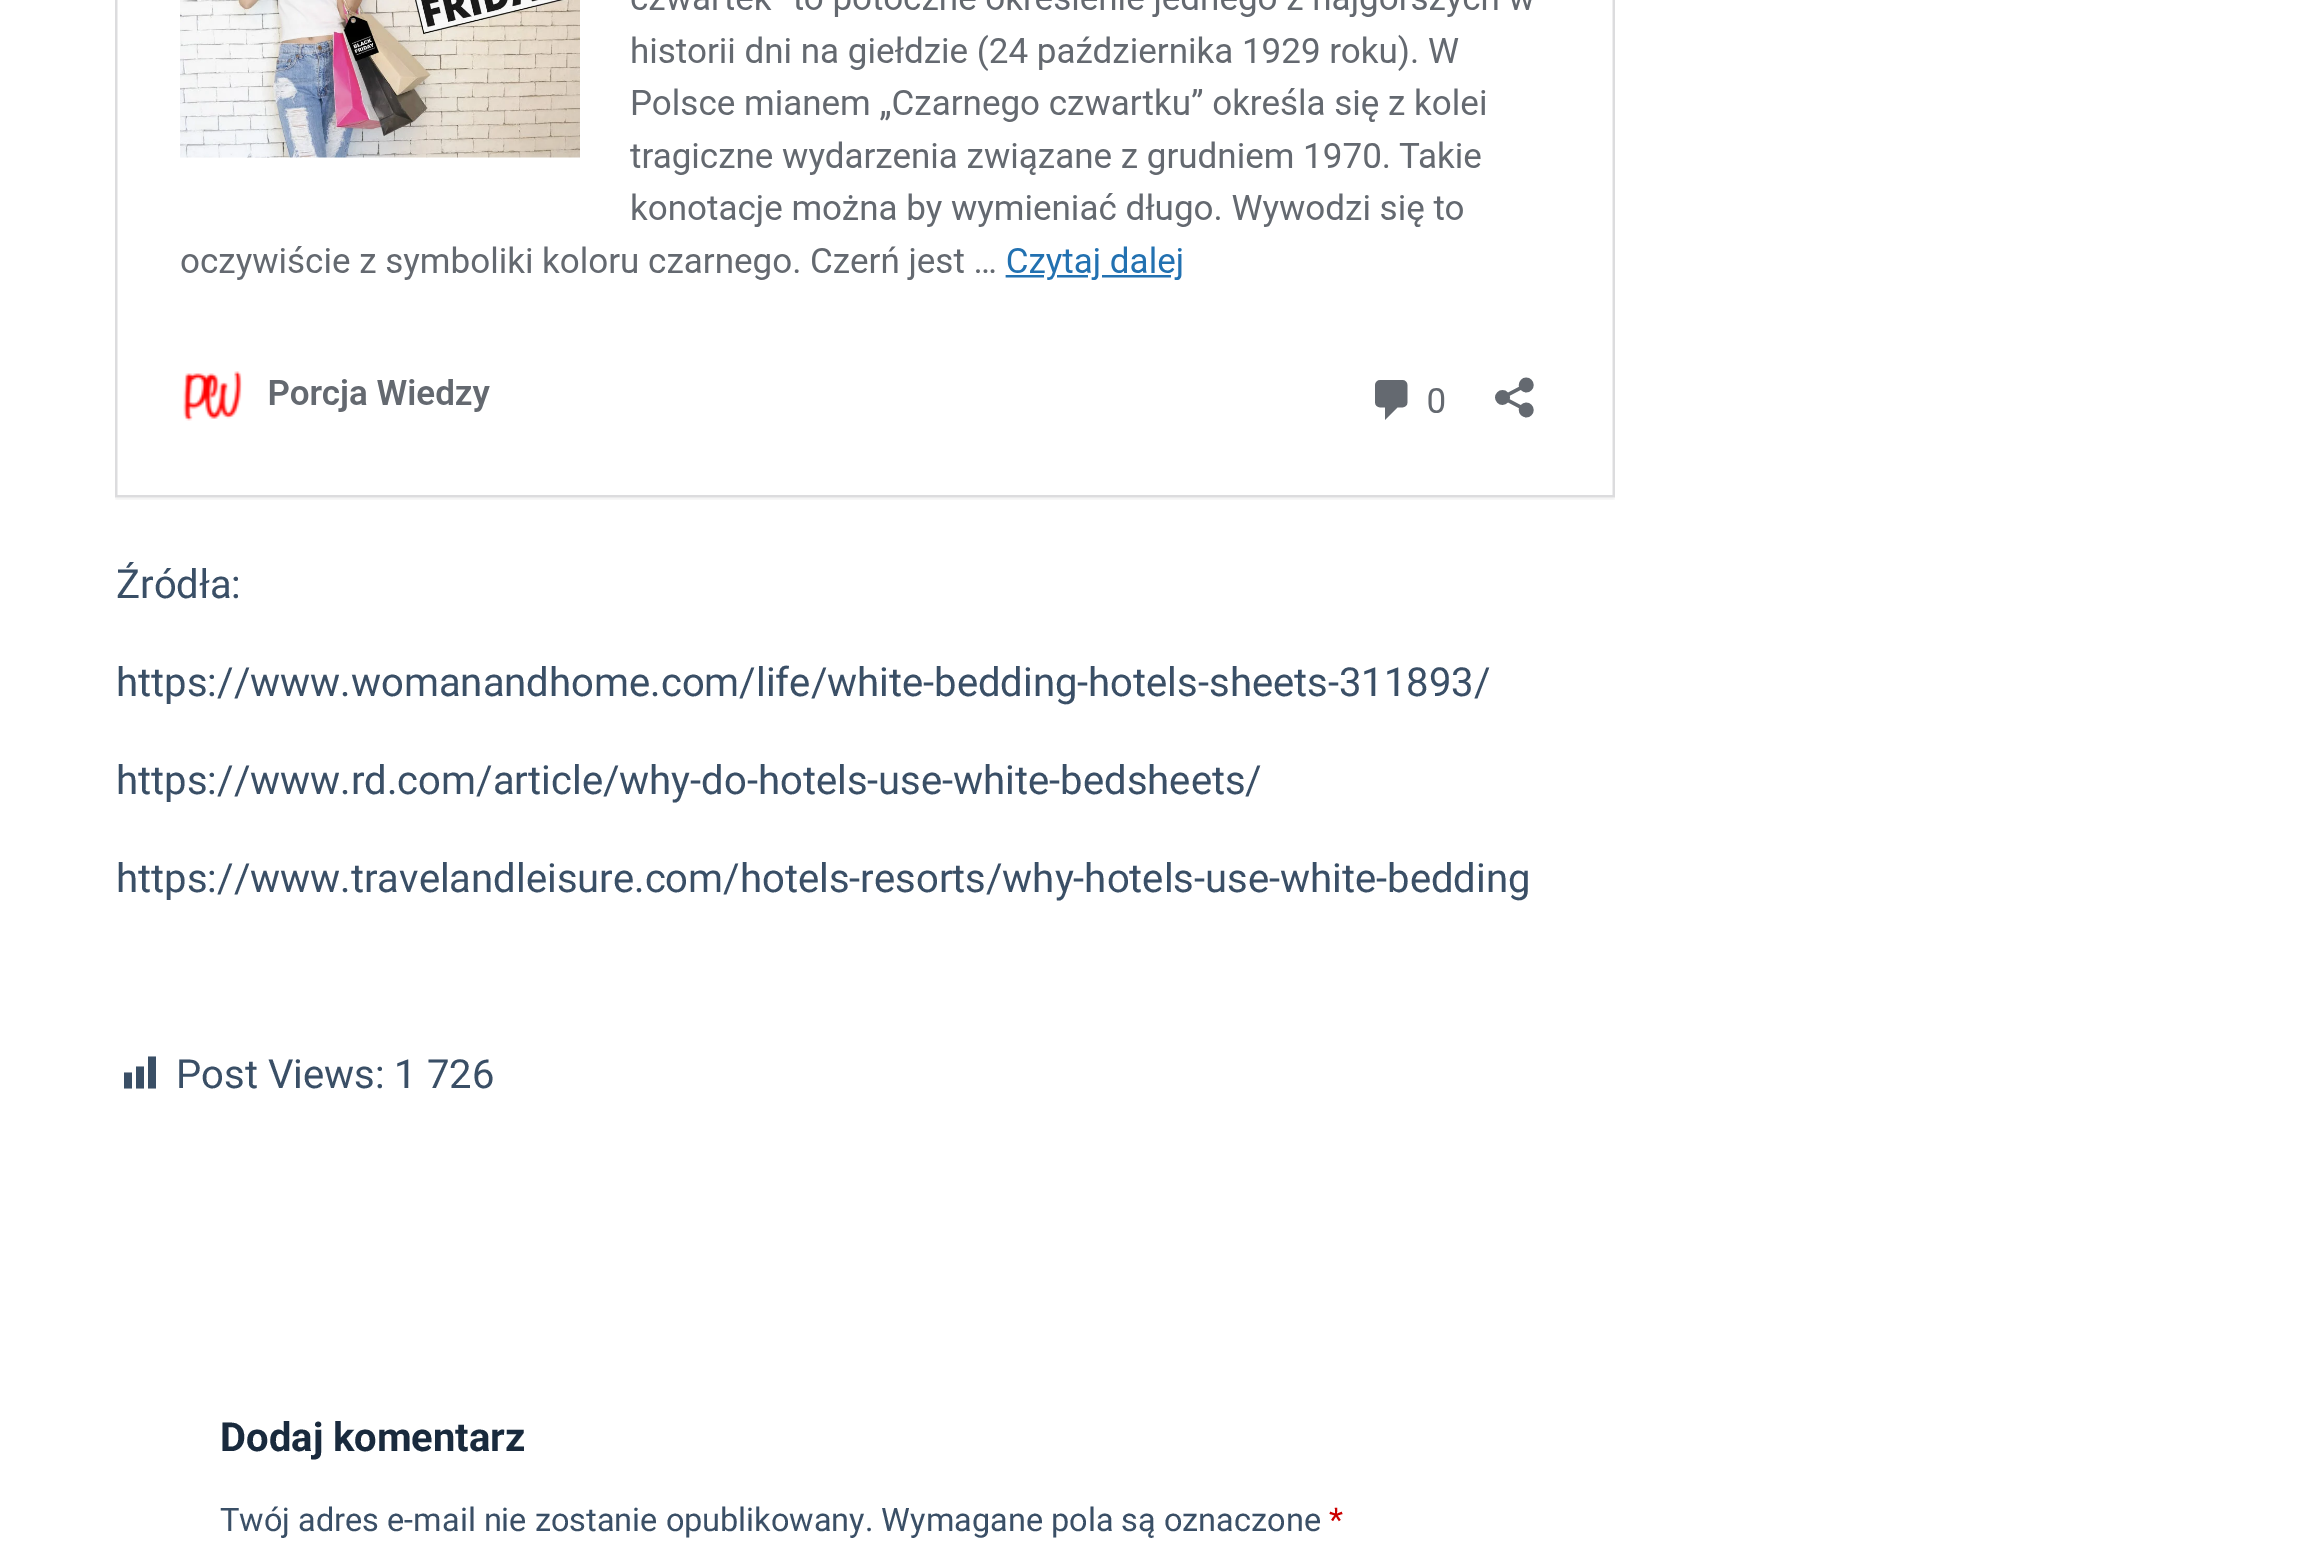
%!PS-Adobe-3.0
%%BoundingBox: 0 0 2314 1559
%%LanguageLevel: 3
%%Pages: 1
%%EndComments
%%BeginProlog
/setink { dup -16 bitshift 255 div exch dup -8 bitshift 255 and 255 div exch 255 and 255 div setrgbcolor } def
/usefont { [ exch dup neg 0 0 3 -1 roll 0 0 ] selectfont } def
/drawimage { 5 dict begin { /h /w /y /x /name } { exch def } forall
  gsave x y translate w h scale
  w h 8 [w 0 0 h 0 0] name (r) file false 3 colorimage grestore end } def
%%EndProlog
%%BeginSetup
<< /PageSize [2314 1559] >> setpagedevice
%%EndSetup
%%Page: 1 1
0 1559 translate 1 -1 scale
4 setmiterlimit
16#FFFFFF setink
0 0 2314 1559 rectfill
(img1.raw) 115 0 1500 500 drawimage
/Roboto-Regular 40 usefont
16#3A4F66 setink
[
    [(Źródła:) 116 598]
    [(https://www.womanandhome.com/life/white-bedding-hotels-sheets-311893/) 116 696]
    [(https://www.rd.com/article/why-do-hotels-use-white-bedsheets/) 116 794]
    [(https://www.travelandleisure.com/hotels-resorts/why-hotels-use-white-bedding) 116 892]
] { aload pop moveto show } forall
156 1088.5 moveto 156 1056.5 lineto 148 1056.5 lineto 148 1088.5 lineto closepath 144 1088.5 moveto 144 1066.5 lineto 136 1066.5 lineto 136 1088.5 lineto closepath 132 1088.5 moveto 132 1072.5 lineto 124 1072.5 lineto 124 1088.5 lineto closepath fill
176 1088 moveto (Post Views: 1 726) show
/Roboto-Bold 40 usefont
16#192A3D setink
220 1451 moveto (Dodaj komentarz) show
/Roboto-Regular 32.5 usefont
16#3A4F66 setink
220 1531 moveto (Twój adres e-mail nie zostanie opublikowany. Wymagane pola są oznaczone) show
16#CC0000 setink
1329 1531 moveto (*) show
showpage
%%EOF
